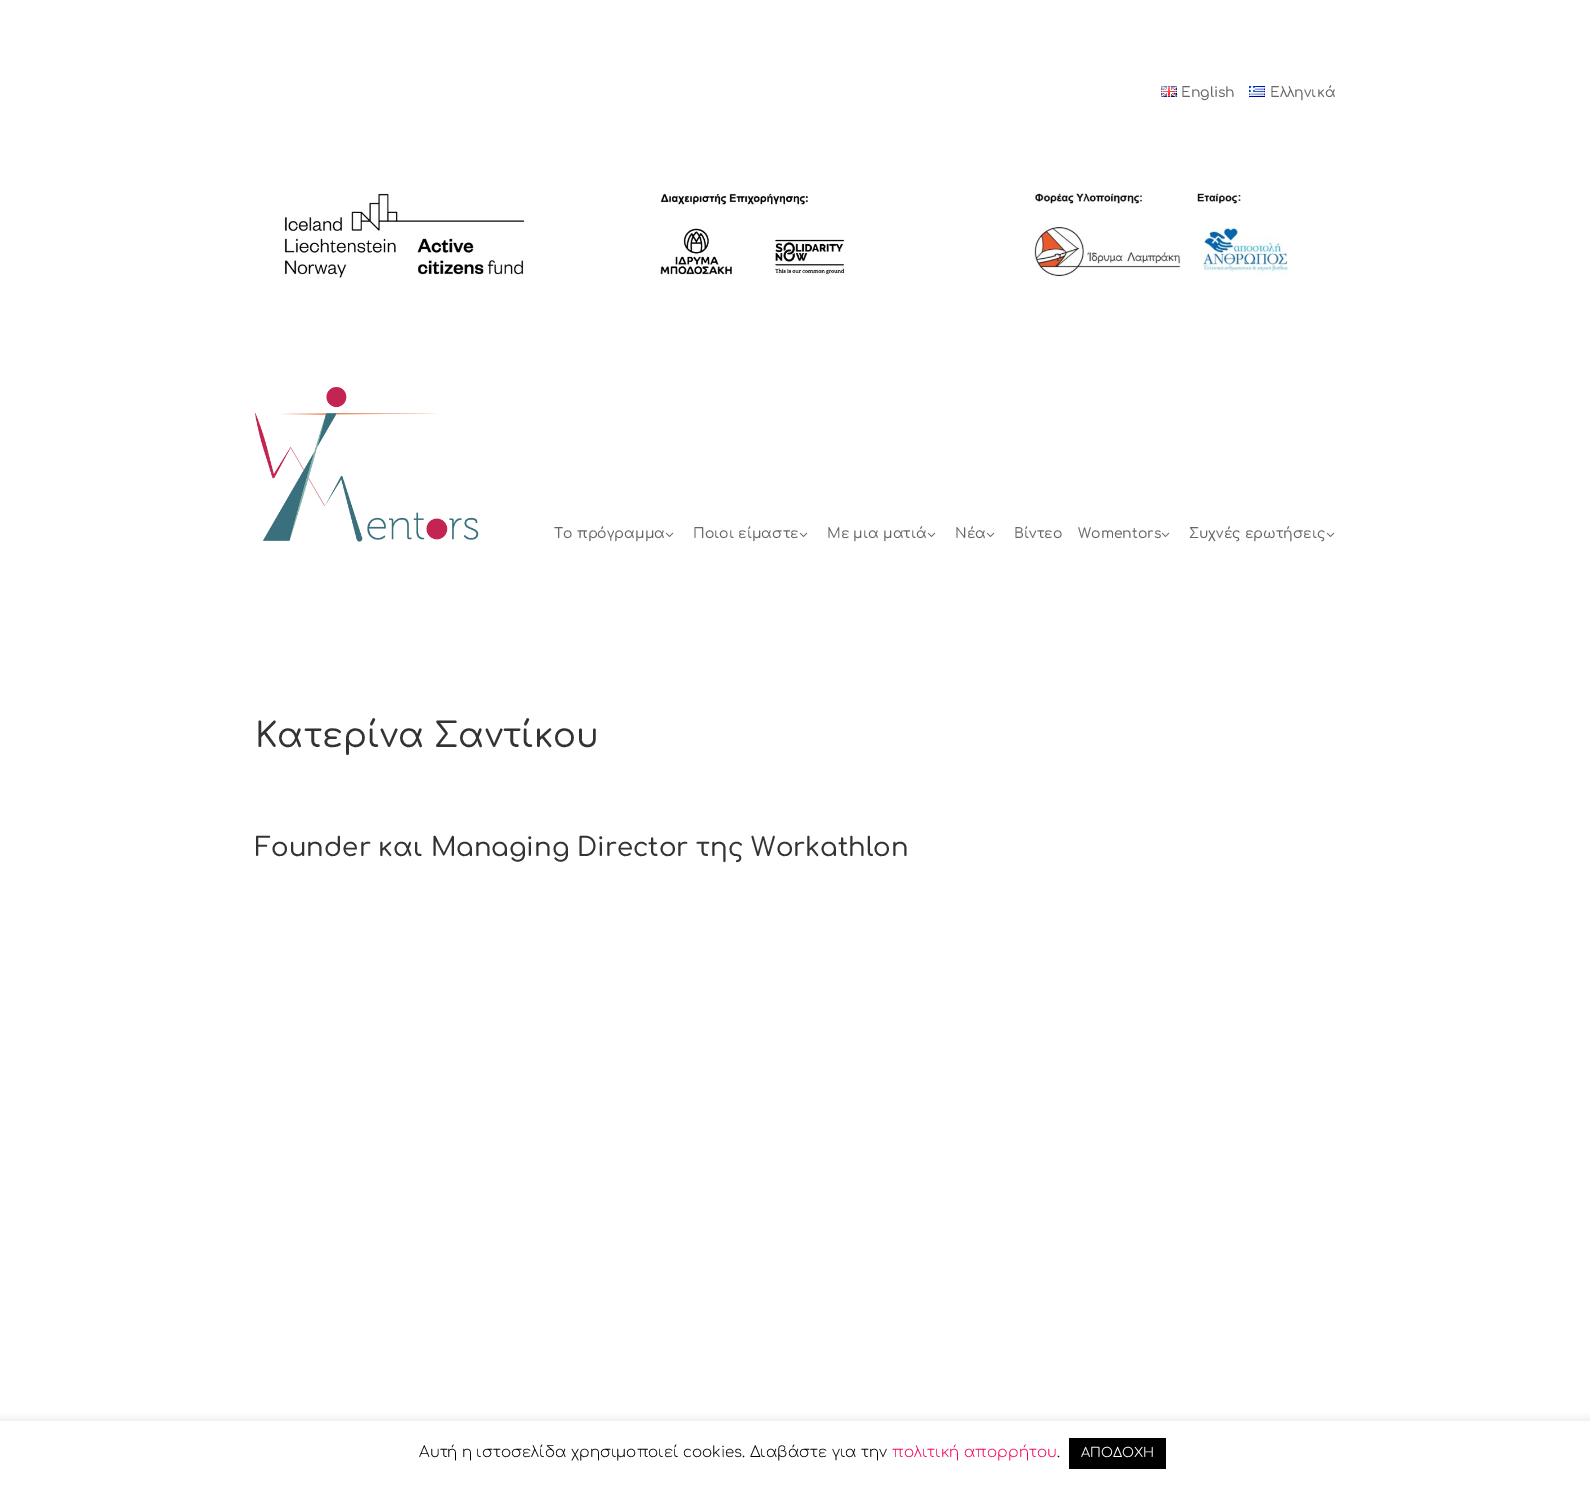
%!PS-Adobe-3.0
%%BoundingBox: 0 0 1590 1486
%%LanguageLevel: 3
%%Pages: 1
%%EndComments
%%BeginProlog
/setink { dup -16 bitshift 255 div exch dup -8 bitshift 255 and 255 div exch 255 and 255 div setrgbcolor } def
/usefont { [ exch dup neg 0 0 3 -1 roll 0 0 ] selectfont } def
/setalpha { dup .setfillconstantalpha .setstrokeconstantalpha } def
/rrect { 5 dict begin { /r /h /w /y /x } { exch def } forall
  x r add y moveto x w add y 2 copy h add r arct x w add y h add x 1 index r arct
  x y h add x y r arct x y 2 copy exch w add exch r arct closepath end } def
/softshadow { 12 dict begin { /a /b /q /h /w /y /x } { exch def } forall gsave /was 0 def
  9 -2 -9 { dup b mul 4 div /e exch def 1 sub .425 mul 2.718 exch exp 1 add a .99 .min exch div /now exch def
    1 1 now sub 1 was sub div sub setalpha /was now def
    w h .min e 2 mul add 0 gt { x e sub y e sub w e 2 mul add h e 2 mul add
      q e add b .6 mul add w h .min 2 div e add .min 0 .max rrect fill } if } for grestore end } def
/drawimage { 5 dict begin { /h /w /y /x /name } { exch def } forall
  gsave x y translate w h scale
  w h 8 [w 0 0 h 0 0] name (r) file false 3 colorimage grestore end } def
%%EndProlog
%%BeginSetup
<< /PageSize [1590 1486] /PageUsesTransparency true >> setpagedevice
%%EndSetup
%%Page: 1 1
0 .pushpdf14devicefilter
0 1486 translate 1 -1 scale
4 setmiterlimit
16#FFFFFF setink
0 0 1590 1486 rectfill
(img1.raw) 1161 86 16 11 drawimage
/Comfortaa-Medium 14 usefont
16#666666 setink
1181 97 moveto (English) show
(img2.raw) 1249 86 16 11 drawimage
1270 97 moveto (Ελληνικά) show
(img3.raw) 284 193 1005 85 drawimage
(img4.raw) 255 387 224 155 drawimage
554 538 moveto (Το πρόγραμμα) show
(img5.raw) 665 532 9 5 drawimage
693 538 moveto (Ποιοι είμαστε) show
(img5.raw) 799 532 9 5 drawimage
827 538 moveto (Με μια ματιά) show
(img5.raw) 927 532 9 5 drawimage
955 538 moveto (Νέα) show
(img5.raw) 986 532 9 5 drawimage
1014 538 moveto (Βίντεο) show
1078 538 moveto (Womentors) show
(img5.raw) 1161 532 9 5 drawimage
1189 538 moveto (Συχνές ερωτήσεις) show
(img5.raw) 1326 532 9 5 drawimage
/Comfortaa-Medium 34 usefont
16#333333 setink
255 747 moveto (Κατερίνα Σαντίκου) show
/Comfortaa-Medium 26 usefont
255 856 moveto (Founder και Managing Director της Workathlon) show
gsave
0 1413 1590 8 rectclip
16#ACABAB setink
0 1420 1590 65 0 5 0.3 softshadow
grestore
/Comfortaa-Light 15 usefont
16#000000 setink
419 1457 moveto (Αυτή η ιστοσελίδα χρησιμοποιεί cookies. Διαβάστε για την) show
16#F7005E setink
892 1457 moveto (πολιτική απορρήτου) show
16#000000 setink
1057 1457 moveto (.) show
1069 1438 97 31 rectfill
/Comfortaa-Regular 13 usefont
16#FFFFFF setink
1081 1457 moveto (ΑΠΟΔΟΧΗ) show
.poppdf14devicefilter showpage
%%EOF
